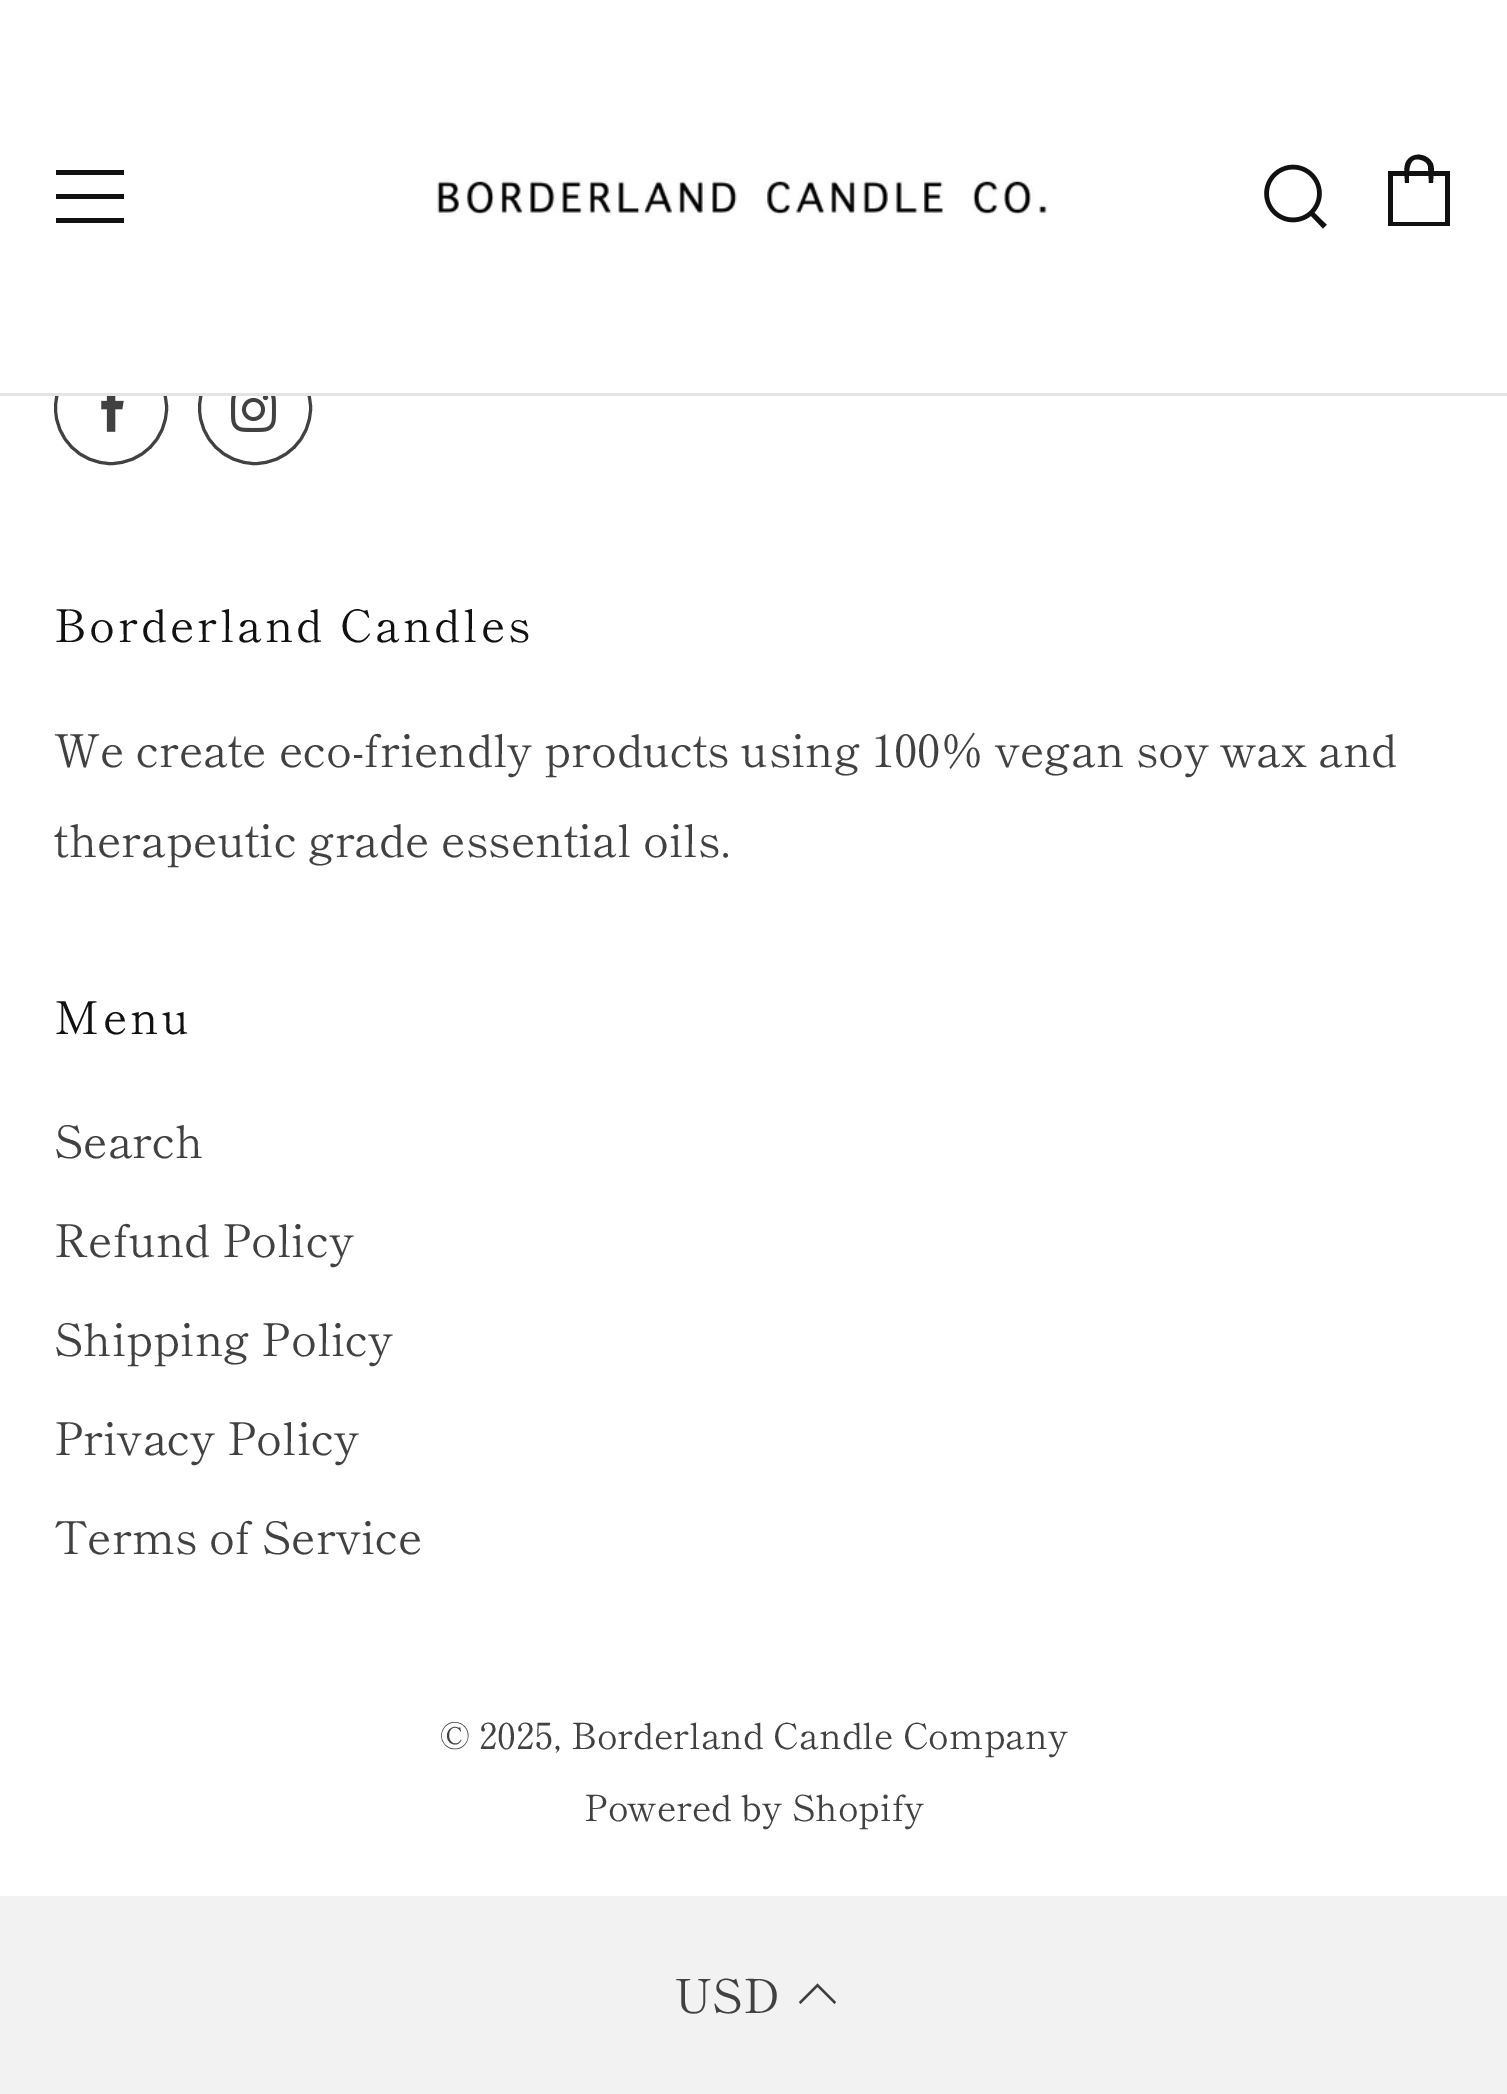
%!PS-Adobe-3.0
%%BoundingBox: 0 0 1507 2094
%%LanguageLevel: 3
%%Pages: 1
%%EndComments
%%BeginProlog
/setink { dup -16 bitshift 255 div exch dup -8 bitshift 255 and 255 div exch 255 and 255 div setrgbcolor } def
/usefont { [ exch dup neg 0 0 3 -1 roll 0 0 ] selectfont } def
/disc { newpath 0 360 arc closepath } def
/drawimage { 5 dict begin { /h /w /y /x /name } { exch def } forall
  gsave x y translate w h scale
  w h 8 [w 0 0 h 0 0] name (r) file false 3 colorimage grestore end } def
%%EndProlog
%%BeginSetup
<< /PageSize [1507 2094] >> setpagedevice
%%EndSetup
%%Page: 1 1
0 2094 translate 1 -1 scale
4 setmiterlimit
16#FFFFFF setink
0 0 1507 2094 rectfill
16#414141 setink
3 setlinewidth
111 408 55.5 disc stroke
255 408 55.5 disc stroke
16#FFFFFF setink
56 351 254 42 rectfill
16#E4E4E4 setink
0 393 1507 3 rectfill
16#111111 setink
56 175 moveto 124 175 lineto 124 170 lineto 56 170 lineto closepath 56 223 moveto 124 223 lineto 124 218 lineto 56 218 lineto closepath 56 199 moveto 124 199 lineto 124 194 lineto 56 194 lineto closepath fill
(img1.raw) 437 178 610 39 drawimage
(img2.raw) 1264 164 63 65 drawimage
1393 222 moveto 1445 222 lineto 1445 176 lineto 1393 176 lineto closepath 1388 171 moveto 1450 171 lineto 1450 226 lineto 1388 226 lineto closepath 1409 183 moveto 1405 183 lineto 1405 177 1403 168 1406 162 curveto 1412 151 1428 153 1433 164 curveto 1435 170 1433 177 1433 183 curveto 1429 183 lineto 1428 166 lineto 1427 163 1425 161 1421 160 curveto 1407 155 1409 176 1409 183 curveto closepath fill
(img3.raw) 101 396 23 36 drawimage
(img4.raw) 231 396 45 36 drawimage
/ShipporiMincho-Regular 45 usefont
54 642 moveto 3 0 (Borderland Candles) ashow
16#414141 setink
54 767 moveto (We create eco-friendly products using 100% vegan soy wax and) show
54 857 moveto (therapeutic grade essential oils.) show
16#111111 setink
54 1034 moveto 3 0 (Menu) ashow
16#414141 setink
[
    [(Search) 54 1158]
    [(Refund Policy) 54 1257]
    [(Shipping Policy) 54 1356]
    [(Privacy Policy) 54 1455]
    [(Terms of Service) 54 1554]
] { aload pop moveto show } forall
/ShipporiMincho-Regular 36 usefont
440 1749 moveto (© 2025, Borderland Candle Company) show
584 1821 moveto (Powered by Shopify) show
16#F2F2F2 setink
0 1896 1507 198 rectfill
/ShipporiMincho-Regular 47 usefont
16#414141 setink
674 2013 moveto (USD) show
16#3E3E3E setink
800.5 2004 moveto 799 2002 lineto 817.5 1983.5 lineto 836 2002 lineto 834.5 2004 lineto 817.5 1987 lineto closepath fill
showpage
%%EOF
